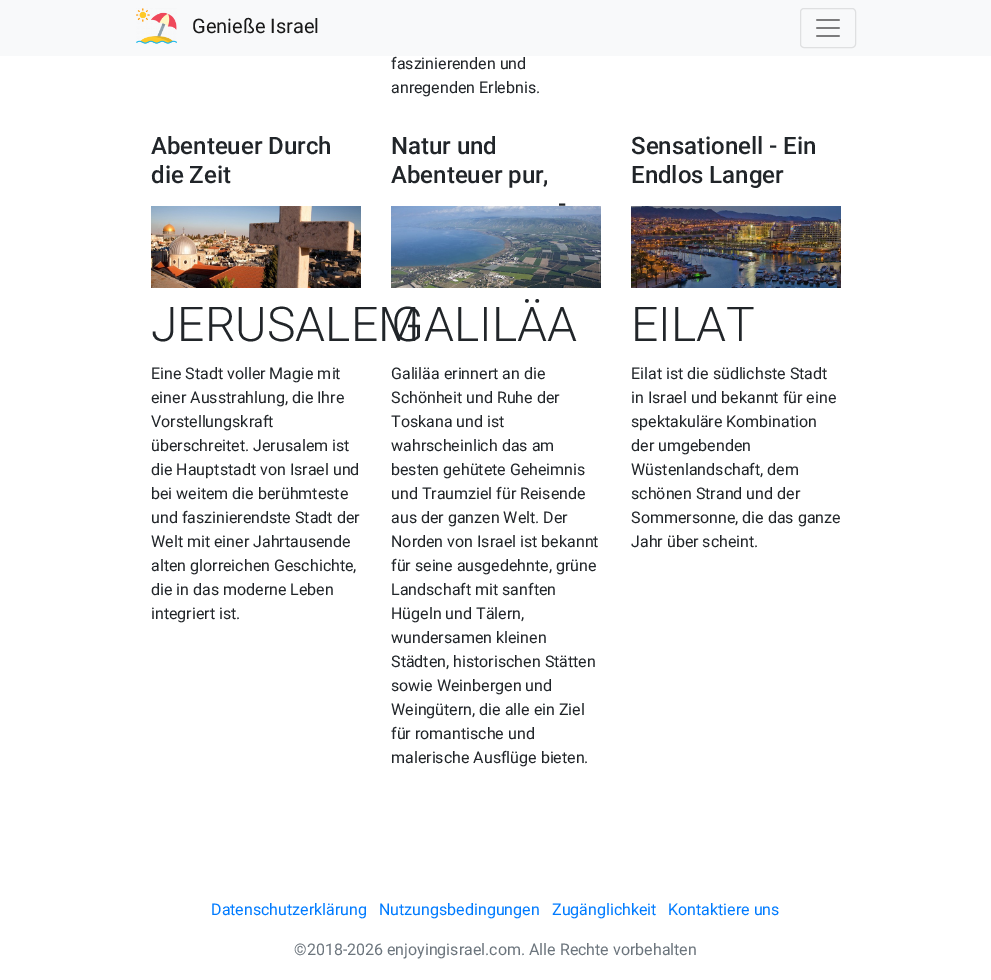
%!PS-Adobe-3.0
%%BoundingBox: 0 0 991 980
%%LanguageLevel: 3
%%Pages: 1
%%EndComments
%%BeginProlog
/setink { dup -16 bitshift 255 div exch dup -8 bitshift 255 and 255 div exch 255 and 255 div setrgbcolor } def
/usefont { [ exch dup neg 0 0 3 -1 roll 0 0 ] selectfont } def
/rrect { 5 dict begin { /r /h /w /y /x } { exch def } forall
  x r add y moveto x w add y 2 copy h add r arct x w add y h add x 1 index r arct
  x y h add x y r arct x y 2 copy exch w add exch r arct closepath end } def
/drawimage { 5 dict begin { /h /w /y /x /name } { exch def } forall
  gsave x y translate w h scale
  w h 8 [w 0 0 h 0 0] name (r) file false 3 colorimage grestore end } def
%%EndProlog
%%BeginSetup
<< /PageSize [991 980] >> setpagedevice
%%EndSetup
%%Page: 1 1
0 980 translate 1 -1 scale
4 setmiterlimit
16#FFFFFF setink
0 0 991 980 rectfill
16#F8F9FA setink
0 0 991 56 rectfill
(img1.raw) 136 8 41 36 drawimage
/Roboto-Regular 20 usefont
16#191919 setink
192 33 moveto (Genieße Israel) show
16#DFE0E1 setink
800.5 8.5 55 39 3.5 rrect stroke
(img2.raw) 816 19 24 18 drawimage
/Roboto-Regular 16 usefont
16#212529 setink
391 69 moveto (faszinierenden und) show
391 93 moveto (anregenden Erlebnis.) show
/Roboto-Medium 24 usefont
151 154 moveto (Abenteuer Durch) show
151 183 moveto (die Zeit) show
(img3.raw) 151 206 210 82 drawimage
/Roboto-Light 48 usefont
151 341 moveto (JERUSALEM) show
/Roboto-Regular 16 usefont
[
    [(Eine Stadt voller Magie mit) 151 379]
    [(einer Ausstrahlung, die Ihre) 151 403]
    [(Vorstellungskraft) 151 427]
    [(überschreitet. Jerusalem ist) 151 451]
    [(die Hauptstadt von Israel und) 151 475]
    [(bei weitem die berühmteste) 151 499]
    [(und faszinierendste Stadt der) 151 523]
    [(Welt mit einer Jahrtausende) 151 547]
    [(alten glorreichen Geschichte,) 151 571]
    [(die in das moderne Leben) 151 595]
    [(integriert ist.) 151 619]
] { aload pop moveto show } forall
/Roboto-Medium 24 usefont
[
    [(Natur und) 391 154]
    [(Abenteuer pur,) 391 183]
    [(-) 558 212]
] { aload pop moveto show } forall
(img4.raw) 391 206 210 82 drawimage
/Roboto-Light 48 usefont
391 341 moveto (GALILÄA) show
/Roboto-Regular 16 usefont
[
    [(Galiläa erinnert an die) 391 379]
    [(Schönheit und Ruhe der) 391 403]
    [(Toskana und ist) 391 427]
    [(wahrscheinlich das am) 391 451]
    [(besten gehütete Geheimnis) 391 475]
    [(und Traumziel für Reisende) 391 499]
    [(aus der ganzen Welt. Der) 391 523]
    [(Norden von Israel ist bekannt) 391 547]
    [(für seine ausgedehnte, grüne) 391 571]
    [(Landschaft mit sanften) 391 595]
    [(Hügeln und Tälern,) 391 619]
    [(wundersamen kleinen) 391 643]
    [(Städten, historischen Stätten) 391 667]
    [(sowie Weinbergen und) 391 691]
    [(Weingütern, die alle ein Ziel) 391 715]
    [(für romantische und) 391 739]
    [(malerische Ausflüge bieten.) 391 763]
] { aload pop moveto show } forall
/Roboto-Medium 24 usefont
631 154 moveto (Sensationell - Ein) show
631 183 moveto (Endlos Langer) show
(img5.raw) 631 206 210 82 drawimage
/Roboto-Light 48 usefont
631 341 moveto (EILAT) show
/Roboto-Regular 16 usefont
[
    [(Eilat ist die südlichste Stadt) 631 379]
    [(in Israel und bekannt für eine) 631 403]
    [(spektakuläre Kombination) 631 427]
    [(der umgebenden) 631 451]
    [(Wüstenlandschaft, dem) 631 475]
    [(schönen Strand und der) 631 499]
    [(Sommersonne, die das ganze) 631 523]
    [(Jahr über scheint.) 631 547]
] { aload pop moveto show } forall
16#007BFF setink
[
    [(Datenschutzerklärung) 211 915]
    [(Nutzungsbedingungen) 379 915]
    [(Zugänglichkeit) 552 915]
    [(Kontaktiere uns) 668 915]
] { aload pop moveto show } forall
16#6C757D setink
294 955 moveto (©2018-2026 enjoyingisrael.com. Alle Rechte vorbehalten) show
showpage
%%EOF
